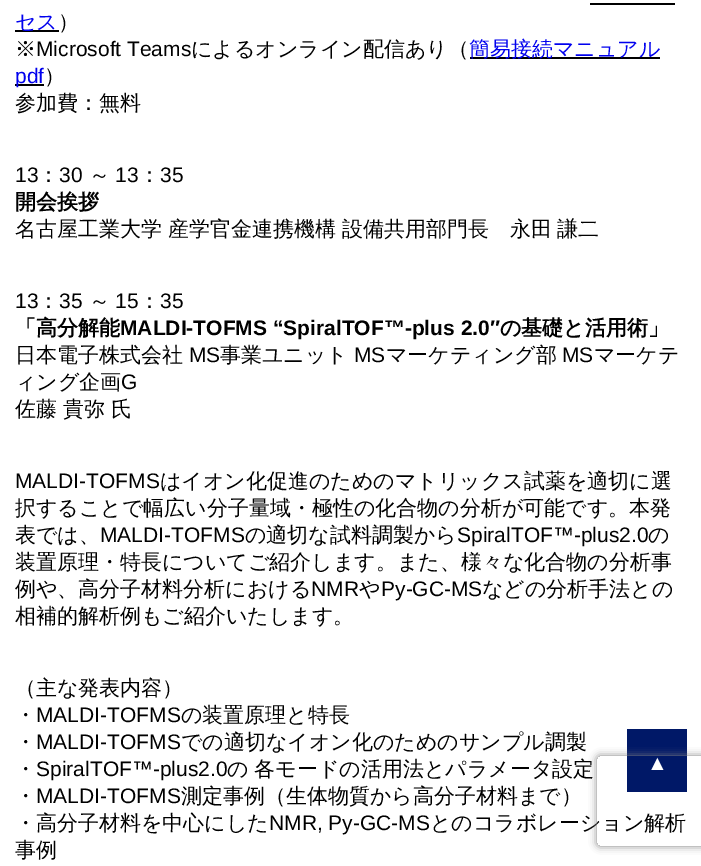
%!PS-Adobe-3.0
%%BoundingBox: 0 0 701 866
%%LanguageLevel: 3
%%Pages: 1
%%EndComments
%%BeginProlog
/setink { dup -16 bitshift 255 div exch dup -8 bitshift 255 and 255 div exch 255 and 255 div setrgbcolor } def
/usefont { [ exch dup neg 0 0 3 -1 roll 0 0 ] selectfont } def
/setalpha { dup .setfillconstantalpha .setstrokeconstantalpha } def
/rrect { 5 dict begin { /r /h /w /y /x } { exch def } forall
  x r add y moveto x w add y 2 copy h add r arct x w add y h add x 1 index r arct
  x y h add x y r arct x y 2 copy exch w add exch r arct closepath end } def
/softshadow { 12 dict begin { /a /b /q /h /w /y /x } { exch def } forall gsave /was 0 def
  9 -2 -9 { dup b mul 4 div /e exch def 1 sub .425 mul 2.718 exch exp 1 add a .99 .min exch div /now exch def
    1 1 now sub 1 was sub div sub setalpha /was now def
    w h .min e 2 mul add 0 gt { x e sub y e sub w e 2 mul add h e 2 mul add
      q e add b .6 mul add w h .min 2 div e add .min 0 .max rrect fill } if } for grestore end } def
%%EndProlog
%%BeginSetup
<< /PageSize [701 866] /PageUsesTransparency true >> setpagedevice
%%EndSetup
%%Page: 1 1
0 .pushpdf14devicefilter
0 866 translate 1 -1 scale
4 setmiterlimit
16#FFFFFF setink
0 0 701 866 rectfill
16#000000 setink
15 30 44 2 rectfill
/WenQuanYiZenHei-Medium 21 usefont
16#0000EE setink
15 29 moveto (セス) show
16#000000 setink
590 3 85 2 rectfill
58 29 moveto (）) show
15 56 moveto (※) show
/LiberationSans-Regular 21 usefont
36 56 moveto (Microsoft Teams) show
/WenQuanYiZenHei-Medium 21 usefont
191 56 moveto (によるオンライン配信あり（) show
470 57 190 2 rectfill
16#0000EE setink
469 56 moveto (簡易接続マニュアル) show
16#000000 setink
15 84 29 2 rectfill
/LiberationSans-Regular 21 usefont
16#0000EE setink
15 83 moveto (pdf) show
/WenQuanYiZenHei-Medium 21 usefont
16#000000 setink
44 83 moveto (）) show
15 110 moveto (参加費：無料) show
/LiberationSans-Regular 21 usefont
15 182 moveto (13) show
/WenQuanYiZenHei-Medium 21 usefont
38 182 moveto (：) show
/LiberationSans-Regular 21 usefont
59 182 moveto (30) show
/WenQuanYiZenHei-Medium 21 usefont
89 182 moveto (～) show
/LiberationSans-Regular 21 usefont
115 182 moveto (13) show
/WenQuanYiZenHei-Medium 21 usefont
139 182 moveto (：) show
/LiberationSans-Regular 21 usefont
160 182 moveto (35) show
/WenQuanYiZenHei-Bold 21 usefont
15 209 moveto (開会挨拶) show
/WenQuanYiZenHei-Medium 21 usefont
15 236 moveto -0.5 0 32 (名古屋工業大学 産学官金連携機構 設備共用部門長　永田 謙二) widthshow
/LiberationSans-Regular 21 usefont
15 308 moveto (13) show
/WenQuanYiZenHei-Medium 21 usefont
38 308 moveto (：) show
/LiberationSans-Regular 21 usefont
59 308 moveto (35) show
/WenQuanYiZenHei-Medium 21 usefont
89 308 moveto (～) show
/LiberationSans-Regular 21 usefont
115 308 moveto (15) show
/WenQuanYiZenHei-Medium 21 usefont
139 308 moveto (：) show
/LiberationSans-Regular 21 usefont
160 308 moveto (35) show
/WenQuanYiZenHei-Bold 21 usefont
15 335 moveto (「高分解能) show
/LiberationSans-Bold 21 usefont
120 335 moveto (MALDI-TOFMS “SpiralTOF™-plus 2.0″) show
/WenQuanYiZenHei-Bold 21 usefont
500 335 moveto (の基礎と活用術」) show
/WenQuanYiZenHei-Medium 21 usefont
15 362 moveto (日本電子株式会社) show
/LiberationSans-Regular 21 usefont
189 362 moveto (MS) show
/WenQuanYiZenHei-Medium 21 usefont
220 362 moveto (事業ユニット) show
/LiberationSans-Regular 21 usefont
354 362 moveto (MS) show
/WenQuanYiZenHei-Medium 21 usefont
386 362 moveto (マーケティング部) show
/LiberationSans-Regular 21 usefont
562 362 moveto (MS) show
/WenQuanYiZenHei-Medium 21 usefont
594 362 moveto (マーケテ) show
15 389 moveto (ィング企画) show
/LiberationSans-Regular 21 usefont
121 389 moveto (G) show
/WenQuanYiZenHei-Medium 21 usefont
15 416 moveto -0.5 0 32 (佐藤 貴弥 氏) widthshow
/LiberationSans-Regular 21 usefont
15 488 moveto (MALDI-TOFMS) show
/WenQuanYiZenHei-Medium 21 usefont
[
    [(はイオン化促進のためのマトリックス試薬を適切に選) 160 488]
    [(択することで幅広い分子量域・極性の化合物の分析が可能です。本発) 15 515]
    [(表では、) 15 542]
] { aload pop moveto show } forall
/LiberationSans-Regular 21 usefont
100 542 moveto (MALDI-TOFMS) show
/WenQuanYiZenHei-Medium 21 usefont
245 542 moveto (の適切な試料調製から) show
/LiberationSans-Regular 21 usefont
457 542 moveto (SpiralTOF™-plus2.0) show
/WenQuanYiZenHei-Medium 21 usefont
[
    [(の) 648 542]
    [(装置原理・特長についてご紹介します。また、様々な化合物の分析事) 15 569]
    [(例や、高分子材料分析における) 15 596]
] { aload pop moveto show } forall
/LiberationSans-Regular 21 usefont
311 596 moveto (NMR) show
/WenQuanYiZenHei-Medium 21 usefont
359 596 moveto (や) show
/LiberationSans-Regular 21 usefont
381 596 moveto (Py-GC-MS) show
/WenQuanYiZenHei-Medium 21 usefont
[
    [(などの分析手法との) 482 596]
    [(相補的解析例もご紹介いたします。) 15 623]
    [(（主な発表内容）) 15 695]
    [(・) 15 722]
] { aload pop moveto show } forall
/LiberationSans-Regular 21 usefont
36 722 moveto (MALDI-TOFMS) show
/WenQuanYiZenHei-Medium 21 usefont
181 722 moveto (の装置原理と特長) show
15 749 moveto (・) show
/LiberationSans-Regular 21 usefont
36 749 moveto (MALDI-TOFMS) show
/WenQuanYiZenHei-Medium 21 usefont
181 749 moveto (での適切なイオン化のためのサンプル調製) show
15 776 moveto (・) show
/LiberationSans-Regular 21 usefont
36 776 moveto (SpiralTOF™-plus2.0) show
/WenQuanYiZenHei-Medium 21 usefont
227 776 moveto -0.5 0 32 (の 各モードの活用法とパラメータ設定) widthshow
15 803 moveto (・) show
/LiberationSans-Regular 21 usefont
36 803 moveto (MALDI-TOFMS) show
/WenQuanYiZenHei-Medium 21 usefont
181 803 moveto (測定事例（生体物質から高分子材料まで）) show
15 830 moveto (・高分子材料を中心にした) show
/LiberationSans-Regular 21 usefont
269 830 moveto (NMR, Py-GC-MS) show
/WenQuanYiZenHei-Medium 21 usefont
430 830 moveto (とのコラボレーション解析) show
15 857 moveto (事例) show
16#001867 setink
627 729 60 63 rectfill
gsave
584 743 moveto 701 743 lineto 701 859 lineto 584 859 lineto closepath 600 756 moveto 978 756 lineto 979.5 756 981 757.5 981 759 curveto 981 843 lineto 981 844.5 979.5 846 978 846 curveto 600 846 lineto 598.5 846 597 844.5 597 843 curveto 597 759 lineto 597 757.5 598.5 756 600 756 curveto closepath eoclip newpath
16#808080 setink
597 756 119 90 3 4 1 softshadow
grestore
/LiberationSans-Regular 21 usefont
16#FFFFFF setink
647 770 moveto (▲) show
.poppdf14devicefilter showpage
%%EOF
